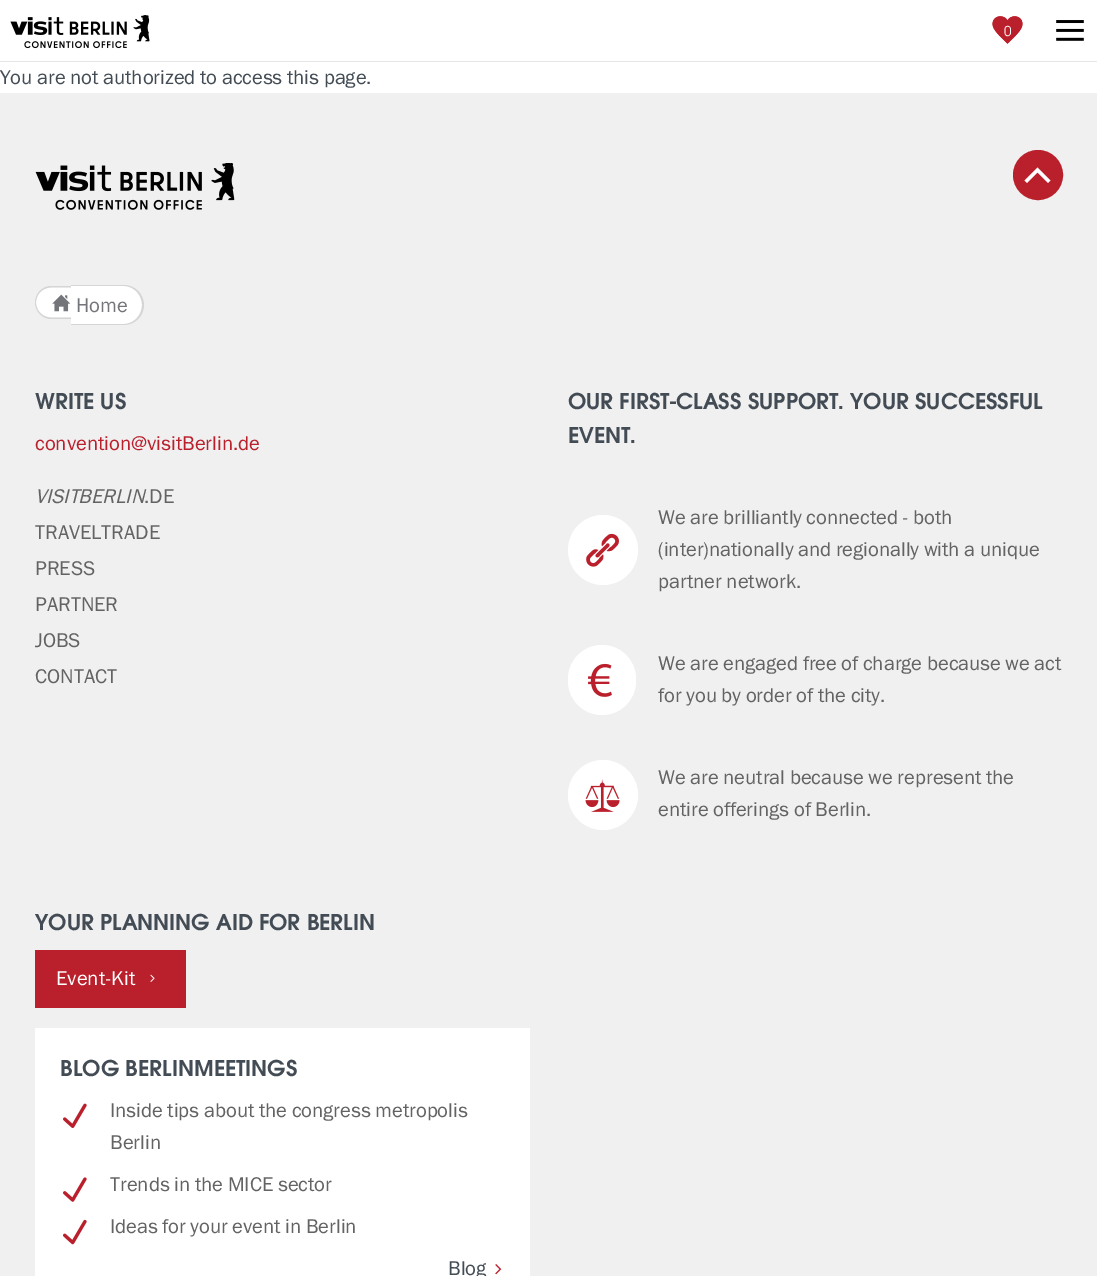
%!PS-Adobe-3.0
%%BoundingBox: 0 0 1097 1276
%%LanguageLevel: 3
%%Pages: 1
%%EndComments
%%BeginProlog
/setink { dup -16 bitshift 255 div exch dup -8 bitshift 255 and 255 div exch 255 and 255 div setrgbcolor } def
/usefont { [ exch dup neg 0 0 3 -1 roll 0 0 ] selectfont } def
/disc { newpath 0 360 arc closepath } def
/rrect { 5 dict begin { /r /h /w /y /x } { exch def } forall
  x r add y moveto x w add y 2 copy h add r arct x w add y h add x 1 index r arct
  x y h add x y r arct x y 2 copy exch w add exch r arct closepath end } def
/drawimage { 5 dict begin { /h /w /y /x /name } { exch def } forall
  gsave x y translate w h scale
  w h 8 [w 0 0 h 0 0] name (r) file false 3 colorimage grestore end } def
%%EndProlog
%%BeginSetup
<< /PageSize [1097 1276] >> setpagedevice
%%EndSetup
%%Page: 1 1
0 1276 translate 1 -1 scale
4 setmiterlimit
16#FFFFFF setink
0 0 1097 1276 rectfill
16#E6E6E6 setink
0 61 1097 1 rectfill
(img1.raw) 10 15 140 34 drawimage
(img2.raw) 992 16 31 28 drawimage
(img3.raw) 992 16 31 28 drawimage
/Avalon-Regular 15 usefont
16#FFFFFF setink
1004 36 moveto (0) show
(img4.raw) 1056 20 28 21 drawimage
/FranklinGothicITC-Regular 20 usefont
16#434C55 setink
0 84 moveto (You are not authorized to access this page.) show
16#F0F0F0 setink
0 93 1097 1183 rectfill
(img5.raw) 35 163 200 47 drawimage
16#BA202C setink
1038 175 23.5 disc gsave fill grestore
3 setlinewidth
stroke
16#FFFFFF setink
1048 183 moveto 1035 170 lineto 1037.5 167.5 lineto 1050.5 180.5 lineto closepath 1027 183 moveto 1024.5 180.5 lineto 1037.5 167.5 lineto 1040 170 lineto closepath fill
51.5 286 moveto 71 286 lineto 71 319 lineto 51.5 319 lineto 42.5 319 35 311.5 35 302.5 curveto 35 293.5 42.5 286 51.5 286 curveto closepath fill
16#D5D5D5 setink
51 286 moveto 71 286 lineto 71 319 lineto 51 319 lineto 42.5 319 35 311.5 35 302.5 curveto 35 293.5 42.5 286 51 286 curveto closepath 51 287.5 moveto 71 287.5 lineto 71 317.5 lineto 51 317.5 lineto 43 317.5 36 311 36 302.5 curveto 36 294 43 287.5 51 287.5 curveto closepath eofill
(img6.raw) 52 294 19 18 drawimage
16#FFFFFF setink
71 285 moveto 124 285 lineto 135 285 144 294 144 305 curveto 144 316 135 325 124 325 curveto 71 325 lineto closepath fill
16#D5D5D5 setink
71 285 moveto 124 285 lineto 135 285 144 294 144 305 curveto 144 316 135 325 124 325 curveto 71 325 lineto closepath 71 286 moveto 124 286 lineto 134 286 142 295 142 305 curveto 142 315 134 324 124 324 curveto 71 324 lineto closepath eofill
16#73757A setink
76 312 moveto (Home) show
/Avalon-SemiBold 24 usefont
16#434C55 setink
35 409 moveto (WRITE US) show
/FranklinGothicITC-Regular 20 usefont
16#BA202C setink
35 450 moveto (convention@visitBerlin.de) show
/FranklinGothicITC-Italic 20 usefont
16#636363 setink
35 503 moveto (VISITBERLIN) show
/FranklinGothicITC-Regular 20 usefont
[
    [(.DE) 144 503]
    [(TRAVELTRADE) 35 539]
    [(PRESS) 35 575]
    [(PARTNER) 35 611]
    [(JOBS) 35 647]
    [(CONTACT) 35 683]
] { aload pop moveto show } forall
/Avalon-SemiBold 24 usefont
16#434C55 setink
568 409 moveto (OUR FIRST-CLASS SUPPORT. YOUR SUCCESSFUL) show
568 443 moveto (EVENT.) show
16#FFFFFF setink
603 550 35 disc fill
(img7.raw) 586 533 33 34 drawimage
/FranklinGothicITC-Regular 20 usefont
16#636363 setink
[
    [(We are brilliantly connected - both) 658 524]
    [(\(inter\)nationally and regionally with a unique) 658 556]
    [(partner network.) 658 588]
] { aload pop moveto show } forall
16#FFFFFF setink
568 645 68 70 34 rrect fill
(img8.raw) 588 663 24 34 drawimage
16#636363 setink
658 670 moveto (We are engaged free of charge because we act) show
658 702 moveto (for you by order of the city.) show
16#FFFFFF setink
603 795 35 disc fill
(img9.raw) 585 779 35 33 drawimage
16#636363 setink
658 784 moveto (We are neutral because we represent the) show
658 816 moveto (entire offerings of Berlin.) show
/Avalon-SemiBold 24 usefont
16#434C55 setink
35 930 moveto (YOUR PLANNING AID FOR BERLIN) show
16#BA202C setink
35 950 151 58 rectfill
/FranklinGothicITC-Regular 20 usefont
16#FFFFFF setink
56 985 moveto (Event-Kit) show
(img10.raw) 150 974 5 8 drawimage
35 1028 495 248 rectfill
/Avalon-SemiBold 24 usefont
16#434C55 setink
60 1076 moveto (BLOG BERLINMEETINGS) show
(img11.raw) 63 1103 24 25 drawimage
/FranklinGothicITC-Regular 20 usefont
16#636363 setink
110 1117 moveto (Inside tips about the congress metropolis) show
110 1149 moveto (Berlin) show
(img12.raw) 63 1177 24 25 drawimage
110 1191 moveto (Trends in the MICE sector) show
(img13.raw) 63 1219 24 26 drawimage
110 1233 moveto (Ideas for your event in Berlin) show
16#434C55 setink
448 1275 moveto (Blog) show
(img14.raw) 495 1264 7 11 drawimage
showpage
%%EOF
